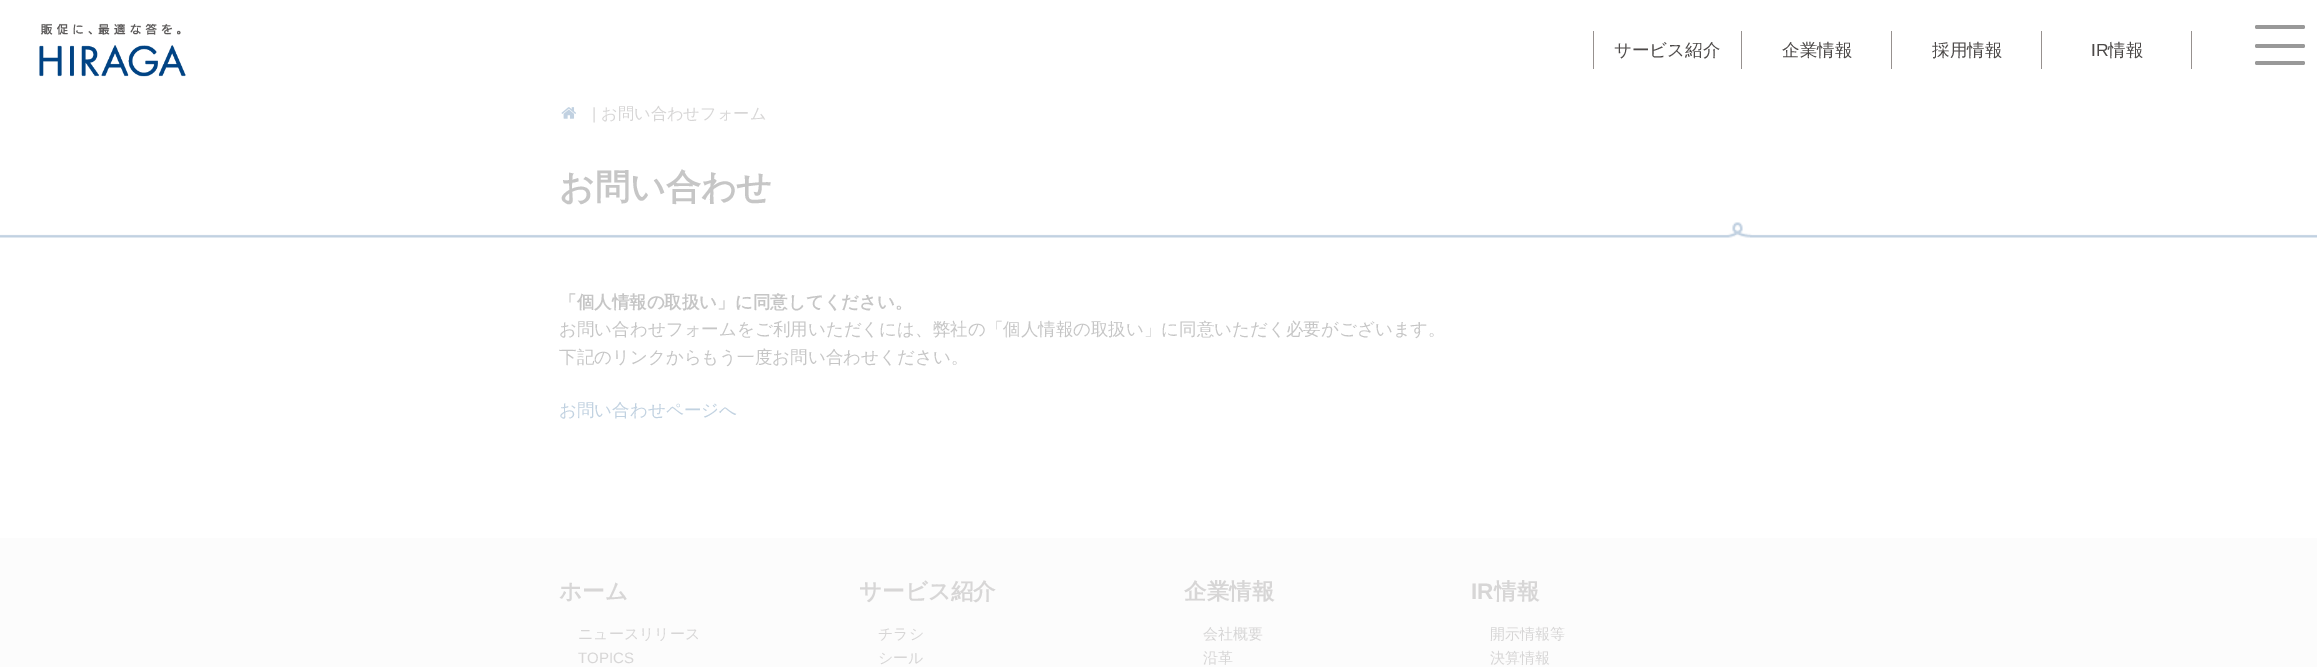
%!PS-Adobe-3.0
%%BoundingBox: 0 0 2317 667
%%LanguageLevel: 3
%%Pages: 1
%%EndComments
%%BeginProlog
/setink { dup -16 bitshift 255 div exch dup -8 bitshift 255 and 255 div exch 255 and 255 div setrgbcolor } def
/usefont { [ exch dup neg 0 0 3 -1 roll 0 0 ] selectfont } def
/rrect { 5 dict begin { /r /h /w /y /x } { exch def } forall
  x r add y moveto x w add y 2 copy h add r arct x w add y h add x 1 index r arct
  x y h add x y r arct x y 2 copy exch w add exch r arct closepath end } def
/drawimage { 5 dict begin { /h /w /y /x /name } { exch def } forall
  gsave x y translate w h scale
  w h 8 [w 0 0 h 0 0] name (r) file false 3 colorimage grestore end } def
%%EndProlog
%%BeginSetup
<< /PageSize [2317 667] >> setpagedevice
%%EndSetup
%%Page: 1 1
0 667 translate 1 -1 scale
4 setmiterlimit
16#FFFFFF setink
0 0 2317 667 rectfill
(img1.raw) 39 23 147 54 drawimage
16#97918F setink
1741 31 1 38 rectfill
1593 31 1 38 rectfill
/WenQuanYiZenHei-Medium 17.5 usefont
16#4C4948 setink
1614 56 moveto (サービス紹介) show
16#97918F setink
1891 31 1 38 rectfill
16#4C4948 setink
1782 56 moveto (企業情報) show
16#97918F setink
2041 31 1 38 rectfill
16#4C4948 setink
1932 56 moveto (採用情報) show
16#97918F setink
2191 31 1 38 rectfill
/LiberationSans-Regular 17.5 usefont
16#4C4948 setink
2091 56 moveto (IR) show
/WenQuanYiZenHei-Medium 17.5 usefont
2108 56 moveto (情報) show
16#999999 setink
2255 25 50 4 2 rrect fill
2255 44 50 4 2 rrect fill
2255 61 50 4 2 rrect fill
(img2.raw) 561 107 15 12 drawimage
/LiberationSans-Regular 16.25 usefont
16#D7D6D6 setink
592 119 moveto (|) show
/WenQuanYiZenHei-Medium 16.25 usefont
601 119 moveto (お問い合わせフォーム) show
(img3.raw) 0 222 2317 16 drawimage
/WenQuanYiZenHei-Bold 35 usefont
16#C6C6C6 setink
559 199 moveto (お問い合わせ) show
/WenQuanYiZenHei-Bold 17.5 usefont
559 308 moveto (「個人情報の取扱い」に同意してください。) show
/WenQuanYiZenHei-Medium 17.5 usefont
559 335 moveto (お問い合わせフォームをご利用いただくには、弊社の「個人情報の取扱い」に同意いただく必要がございます。) show
559 363 moveto (下記のリンクからもう一度お問い合わせください。) show
16#C1D2E1 setink
559 416 moveto (お問い合わせページへ) show
16#FCFCFC setink
0 538 2317 129 rectfill
/WenQuanYiZenHei-Bold 22.5 usefont
16#D7D6D6 setink
559 599 moveto (ホーム) show
/WenQuanYiZenHei-Medium 15 usefont
578 639 moveto (ニュースリリース) show
/LiberationSans-Regular 15 usefont
578 663 moveto (TOPICS) show
/WenQuanYiZenHei-Bold 22.5 usefont
859 599 moveto (サービス紹介) show
/WenQuanYiZenHei-Medium 15 usefont
878 639 moveto (チラシ) show
878 663 moveto (シール) show
/WenQuanYiZenHei-Bold 22.5 usefont
1184 599 moveto (企業情報) show
/WenQuanYiZenHei-Medium 15 usefont
1203 639 moveto (会社概要) show
1203 663 moveto (沿革) show
/LiberationSans-Bold 22.5 usefont
1471 599 moveto (IR) show
/WenQuanYiZenHei-Bold 22.5 usefont
1494 599 moveto (情報) show
/WenQuanYiZenHei-Medium 15 usefont
1490 639 moveto (開示情報等) show
1490 663 moveto (決算情報) show
showpage
%%EOF
